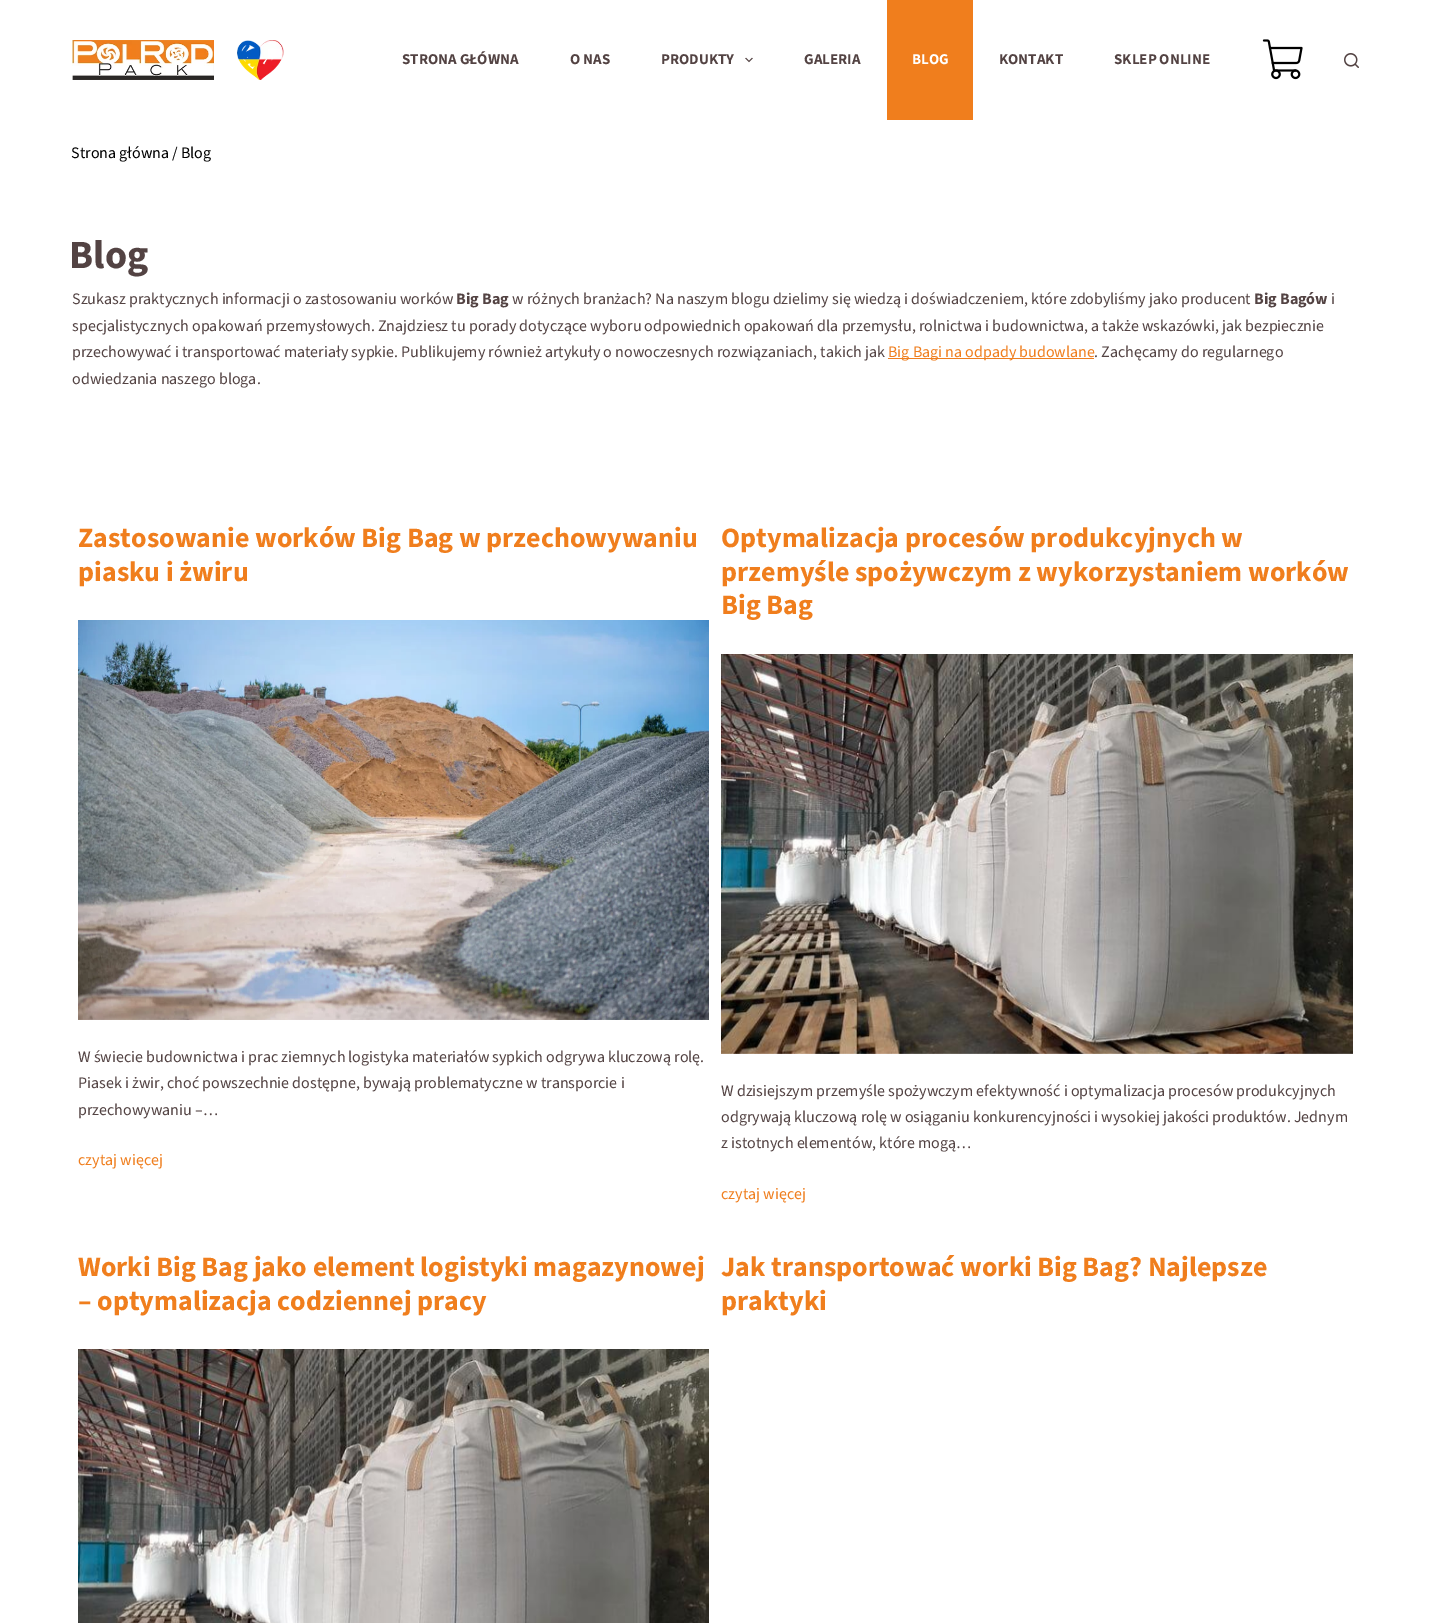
%!PS-Adobe-3.0
%%BoundingBox: 0 0 1431 1623
%%LanguageLevel: 3
%%Pages: 1
%%EndComments
%%BeginProlog
/setink { dup -16 bitshift 255 div exch dup -8 bitshift 255 and 255 div exch 255 and 255 div setrgbcolor } def
/usefont { [ exch dup neg 0 0 3 -1 roll 0 0 ] selectfont } def
/drawimage { 5 dict begin { /h /w /y /x /name } { exch def } forall
  gsave x y translate w h scale
  w h 8 [w 0 0 h 0 0] name (r) file false 3 colorimage grestore end } def
%%EndProlog
%%BeginSetup
<< /PageSize [1431 1623] >> setpagedevice
%%EndSetup
%%Page: 1 1
0 1623 translate 1 -1 scale
4 setmiterlimit
16#FFFFFF setink
0 0 1431 1623 rectfill
(img1.raw) 72 40 212 40 drawimage
/SourceSans3-Bold 15 usefont
16#534343 setink
[
    [(STRONA GŁÓWNA) 402 64]
    [(O NAS) 570 64]
    [(PRODUKTY) 661 64]
] { aload pop moveto show } forall
(img2.raw) 745 57 8 6 drawimage
804 64 moveto (GALERIA) show
16#F07E1D setink
887 0 86 120 rectfill
16#FFFFFF setink
912 64 moveto (BLOG) show
16#534343 setink
999 64 moveto (KONTAKT) show
1114 64 moveto (SKLEP ONLINE) show
(img3.raw) 1262 39 41 41 drawimage
(img4.raw) 1344 53 15 15 drawimage
/SourceSans3-Regular 16 usefont
16#000000 setink
71 158 moveto (Strona główna / Blog) show
/SourceSans3-Bold 40 usefont
16#534343 setink
69 268 moveto (Blog) show
/SourceSans3-Regular 16 usefont
72 304 moveto (Szukasz praktycznych informacji o zastosowaniu worków) show
/SourceSans3-Bold 16 usefont
456 304 moveto (Big Bag) show
/SourceSans3-Regular 16 usefont
512 304 moveto (w różnych branżach? Na naszym blogu dzielimy się wiedzą i doświadczeniem, które zdobyliśmy jako producent) show
/SourceSans3-Bold 16 usefont
1254 304 moveto (Big Bagów) show
/SourceSans3-Regular 16 usefont
[
    [(i) 1331 304]
    [(specjalistycznych opakowań przemysłowych. Znajdziesz tu porady dotyczące wyboru odpowiednich opakowań dla przemysłu, rolnictwa i budownictwa, a także wskazówki, jak bezpiecznie) 72 331]
    [(przechowywać i transportować materiały sypkie. Publikujemy również artykuły o nowoczesnych rozwiązaniach, takich jak) 72 357]
] { aload pop moveto show } forall
16#F07E1D setink
888 358 206 1 rectfill
888 357 moveto (Big Bagi na odpady budowlane) show
16#534343 setink
1094 357 moveto (. Zachęcamy do regularnego) show
72 384 moveto (odwiedzania naszego bloga.) show
/SourceSans3-Bold 28 usefont
16#F07E1D setink
78 547 moveto (Zastosowanie worków Big Bag w przechowywaniu) show
78 581 moveto (piasku i żwiru) show
(img5.raw) 78 620 631 400 drawimage
/SourceSans3-Regular 16 usefont
16#534343 setink
[
    [(W świecie budownictwa i prac ziemnych logistyka materiałów sypkich odgrywa kluczową rolę.) 78 1062]
    [(Piasek i żwir, choć powszechnie dostępne, bywają problematyczne w transporcie i) 78 1088]
    [(przechowywaniu –…) 78 1115]
] { aload pop moveto show } forall
16#F07E1D setink
78 1165 moveto (czytaj więcej) show
/SourceSans3-Bold 28 usefont
[
    [(Optymalizacja procesów produkcyjnych w) 721 547]
    [(przemyśle spożywczym z wykorzystaniem worków) 721 581]
    [(Big Bag) 721 614]
] { aload pop moveto show } forall
(img6.raw) 721 654 632 400 drawimage
/SourceSans3-Regular 16 usefont
16#534343 setink
[
    [(W dzisiejszym przemyśle spożywczym efektywność i optymalizacja procesów produkcyjnych) 721 1096]
    [(odgrywają kluczową rolę w osiąganiu konkurencyjności i wysokiej jakości produktów. Jednym) 721 1122]
    [(z istotnych elementów, które mogą…) 721 1148]
] { aload pop moveto show } forall
16#F07E1D setink
721 1199 moveto (czytaj więcej) show
/SourceSans3-Bold 28 usefont
78 1276 moveto (Worki Big Bag jako element logistyki magazynowej) show
78 1310 moveto (– optymalizacja codziennej pracy) show
(img7.raw) 78 1349 631 274 drawimage
721 1276 moveto (Jak transportować worki Big Bag? Najlepsze) show
721 1310 moveto (praktyki) show
showpage
%%EOF
